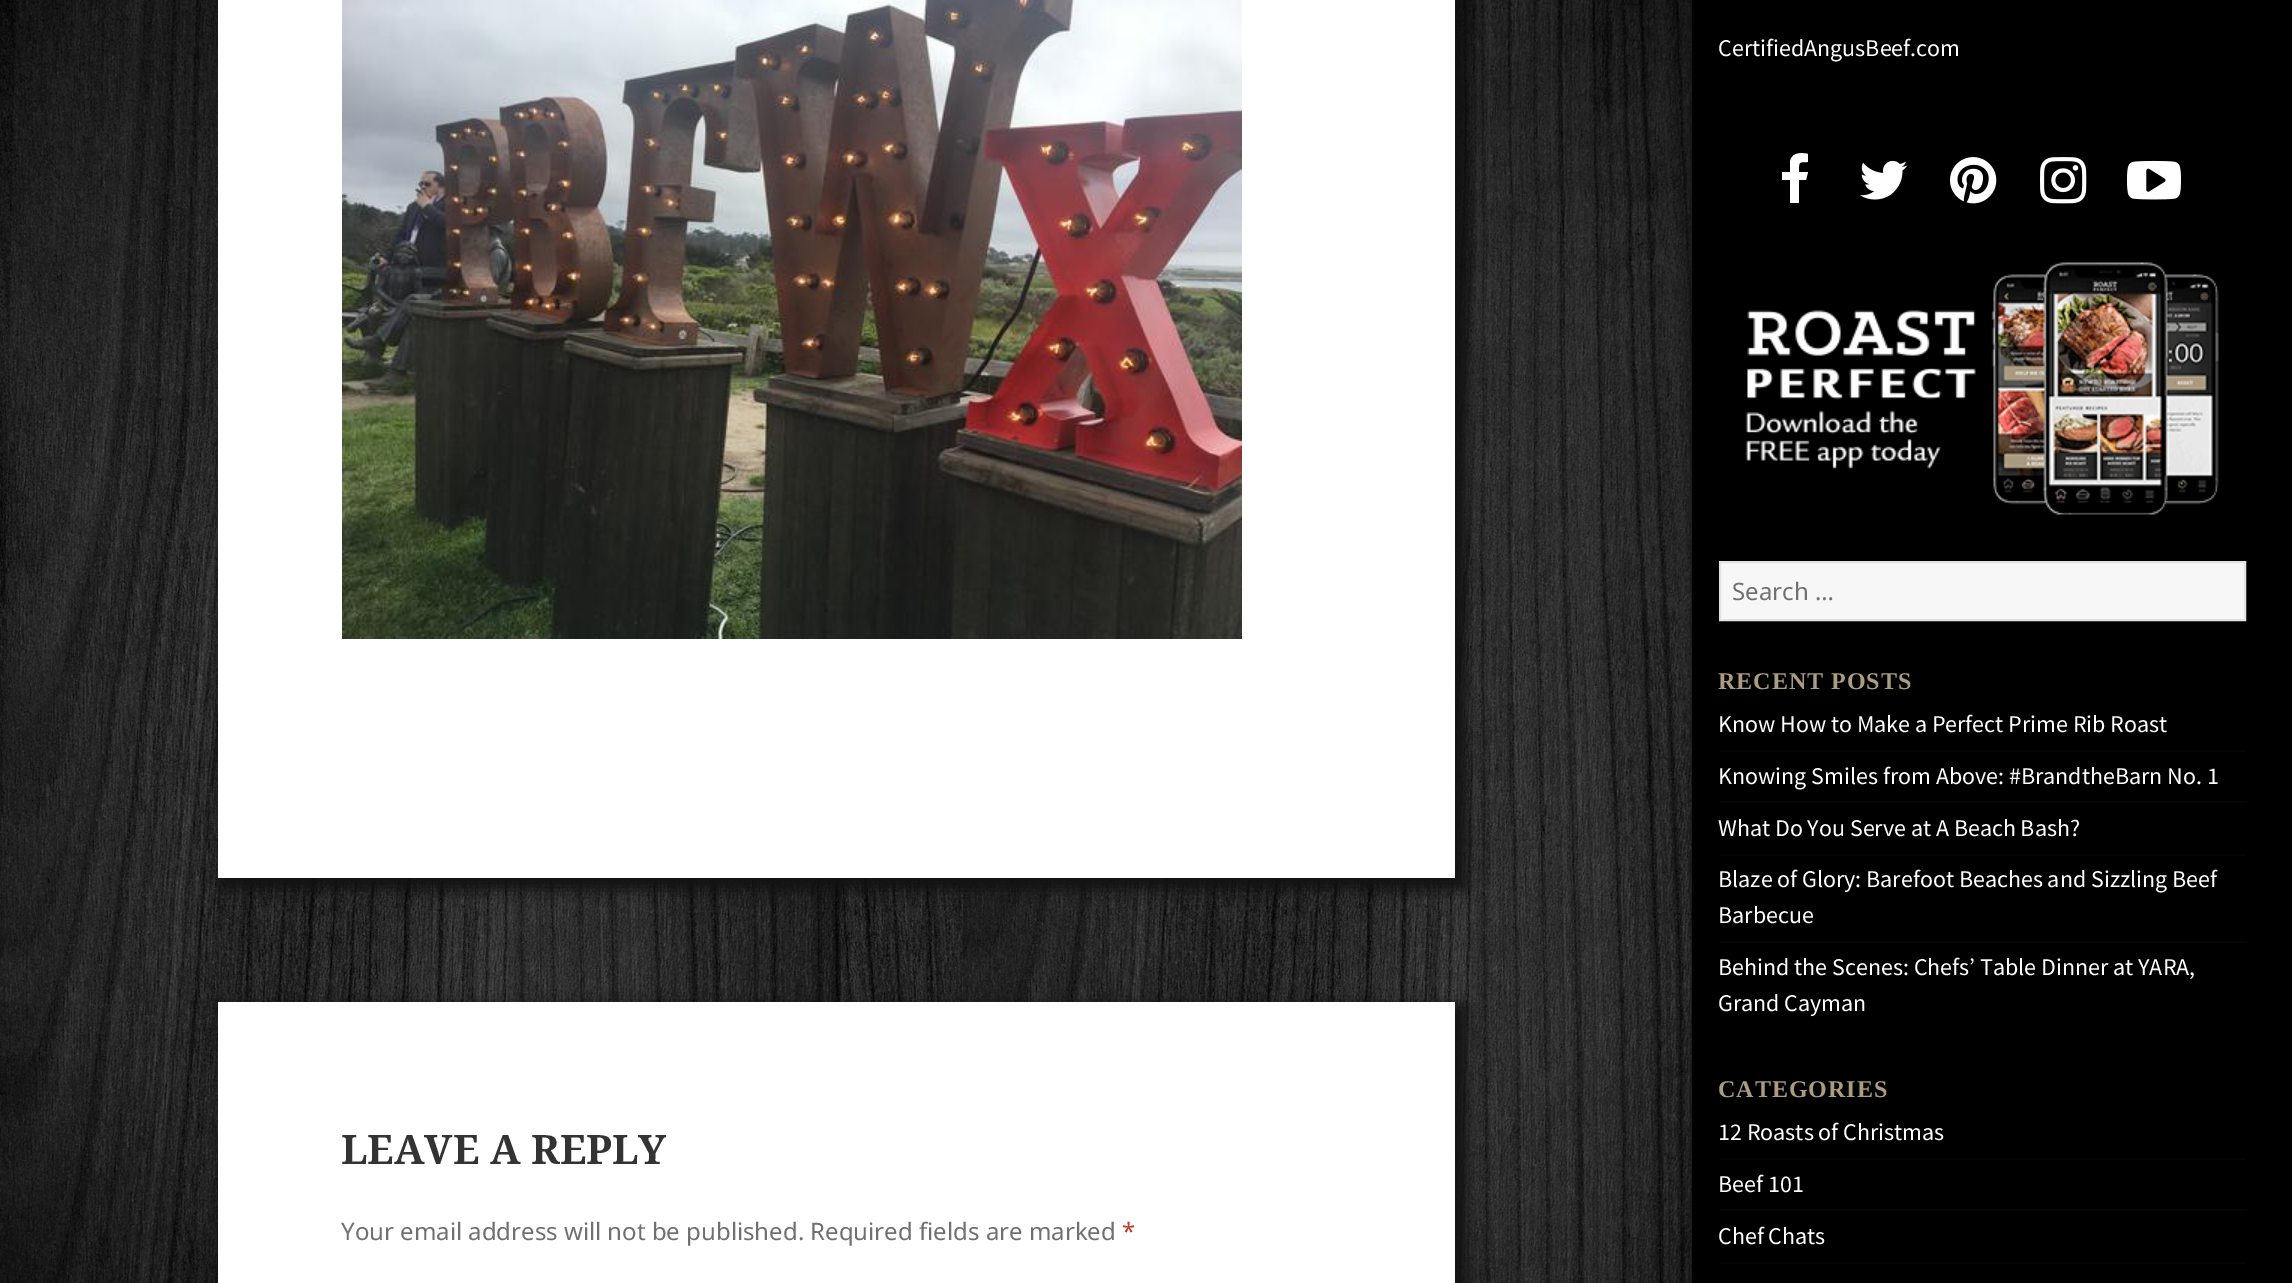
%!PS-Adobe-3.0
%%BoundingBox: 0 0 2292 1283
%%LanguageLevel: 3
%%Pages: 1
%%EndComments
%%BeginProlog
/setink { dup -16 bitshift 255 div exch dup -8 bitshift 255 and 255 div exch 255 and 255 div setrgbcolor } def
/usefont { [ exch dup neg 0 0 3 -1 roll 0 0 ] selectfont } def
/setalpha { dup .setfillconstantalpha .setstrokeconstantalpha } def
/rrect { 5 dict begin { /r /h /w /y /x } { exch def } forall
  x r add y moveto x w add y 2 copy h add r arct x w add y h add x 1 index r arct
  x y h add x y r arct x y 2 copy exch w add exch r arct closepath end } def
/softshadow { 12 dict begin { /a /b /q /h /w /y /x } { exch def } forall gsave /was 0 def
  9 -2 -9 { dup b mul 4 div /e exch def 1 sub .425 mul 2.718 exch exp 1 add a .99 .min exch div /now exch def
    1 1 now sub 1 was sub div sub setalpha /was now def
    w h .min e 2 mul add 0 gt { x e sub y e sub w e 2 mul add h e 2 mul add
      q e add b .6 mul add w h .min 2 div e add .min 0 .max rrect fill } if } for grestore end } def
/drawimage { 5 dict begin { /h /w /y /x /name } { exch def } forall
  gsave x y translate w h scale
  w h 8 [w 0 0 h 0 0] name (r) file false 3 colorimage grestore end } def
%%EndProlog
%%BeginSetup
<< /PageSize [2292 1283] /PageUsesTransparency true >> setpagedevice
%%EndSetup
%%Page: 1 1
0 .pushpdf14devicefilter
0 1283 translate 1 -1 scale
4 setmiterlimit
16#FFFFFF setink
0 0 2292 1283 rectfill
(img1.raw) 0 0 1692 1283 drawimage
16#111111 setink
1692 0 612 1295 0 4 1 softshadow
16#000000 setink
1692 0 600 1283 rectfill
16#111111 setink
221 -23 1246 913 0 7.5 1 softshadow
16#FFFFFF setink
218 0 1237 878 rectfill
(img2.raw) 342 0 900 639 drawimage
16#111111 setink
221 1005 1246 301 0 7.5 1 softshadow
16#FFFFFF setink
218 1002 1237 281 rectfill
/NotoSerif-Bold 40.5 usefont
16#333333 setink
341 1164 moveto (LEAVE A REPLY) show
/NotoSans-Regular 24 usefont
16#707070 setink
341 1240 moveto (Your email address will not be published. Required fields are marked) show
16#C0392B setink
1122 1240 moveto (*) show
/SourceSansPro-Regular 24 usefont
16#FFFFFF setink
1718 56 moveto (CertifiedAngusBeef.com) show
1808 154 moveto 1808 162 lineto 1798 162 1799 162 1799 172 curveto 1808 172 lineto 1806 180 lineto 1799 180 lineto 1799 203 lineto 1790 203 lineto 1790 180 lineto 1782 180 lineto 1782 172 lineto 1790 172 lineto 1790 162 lineto 1791 153 1800 152 1808 154 curveto closepath fill
(img3.raw) 1860 160 48 40 drawimage
(img4.raw) 1950 157 47 47 drawimage
(img5.raw) 2040 157 47 47 drawimage
(img6.raw) 2127 160 54 40 drawimage
(img7.raw) 1745 262 474 253 drawimage
16#F7F7F7 setink
1720 562 moveto 2245 562 lineto 2245 620 lineto 1720 620 lineto closepath gsave fill grestore
16#E3E3E3 setink
2 setlinewidth
stroke
/NotoSans-Regular 24 usefont
16#707070 setink
1732 600 moveto (Search …) show
/LiberationSerif-Bold 24 usefont
16#AB9B80 setink
1718 689 moveto 1 0 (RECENT POSTS) ashow
/SourceSansPro-Regular 24 usefont
16#FFFFFF setink
1718 732 moveto (Know How to Make a Perfect Prime Rib Roast) show
16#050505 setink
1719 750 527 2 rectfill
16#FFFFFF setink
1718 784 moveto (Knowing Smiles from Above: #BrandtheBarn No. 1) show
16#050505 setink
1719 801 527 2 rectfill
16#FFFFFF setink
1718 836 moveto (What Do You Serve at A Beach Bash?) show
16#050505 setink
1719 854 527 2 rectfill
16#FFFFFF setink
1718 887 moveto (Blaze of Glory: Barefoot Beaches and Sizzling Beef) show
1718 923 moveto (Barbecue) show
16#050505 setink
1719 941 527 2 rectfill
16#FFFFFF setink
1718 975 moveto (Behind the Scenes: Chefs’ Table Dinner at YARA,) show
1718 1011 moveto (Grand Cayman) show
/LiberationSerif-Bold 24 usefont
16#AB9B80 setink
1718 1097 moveto 1 0 (CATEGORIES) ashow
/SourceSansPro-Regular 24 usefont
16#FFFFFF setink
1718 1140 moveto (12 Roasts of Christmas) show
16#050505 setink
1719 1158 527 2 rectfill
16#FFFFFF setink
1718 1192 moveto (Beef 101) show
16#050505 setink
1719 1209 527 2 rectfill
16#FFFFFF setink
1718 1244 moveto (Chef Chats) show
16#050505 setink
1719 1262 527 2 rectfill
.poppdf14devicefilter showpage
%%EOF
